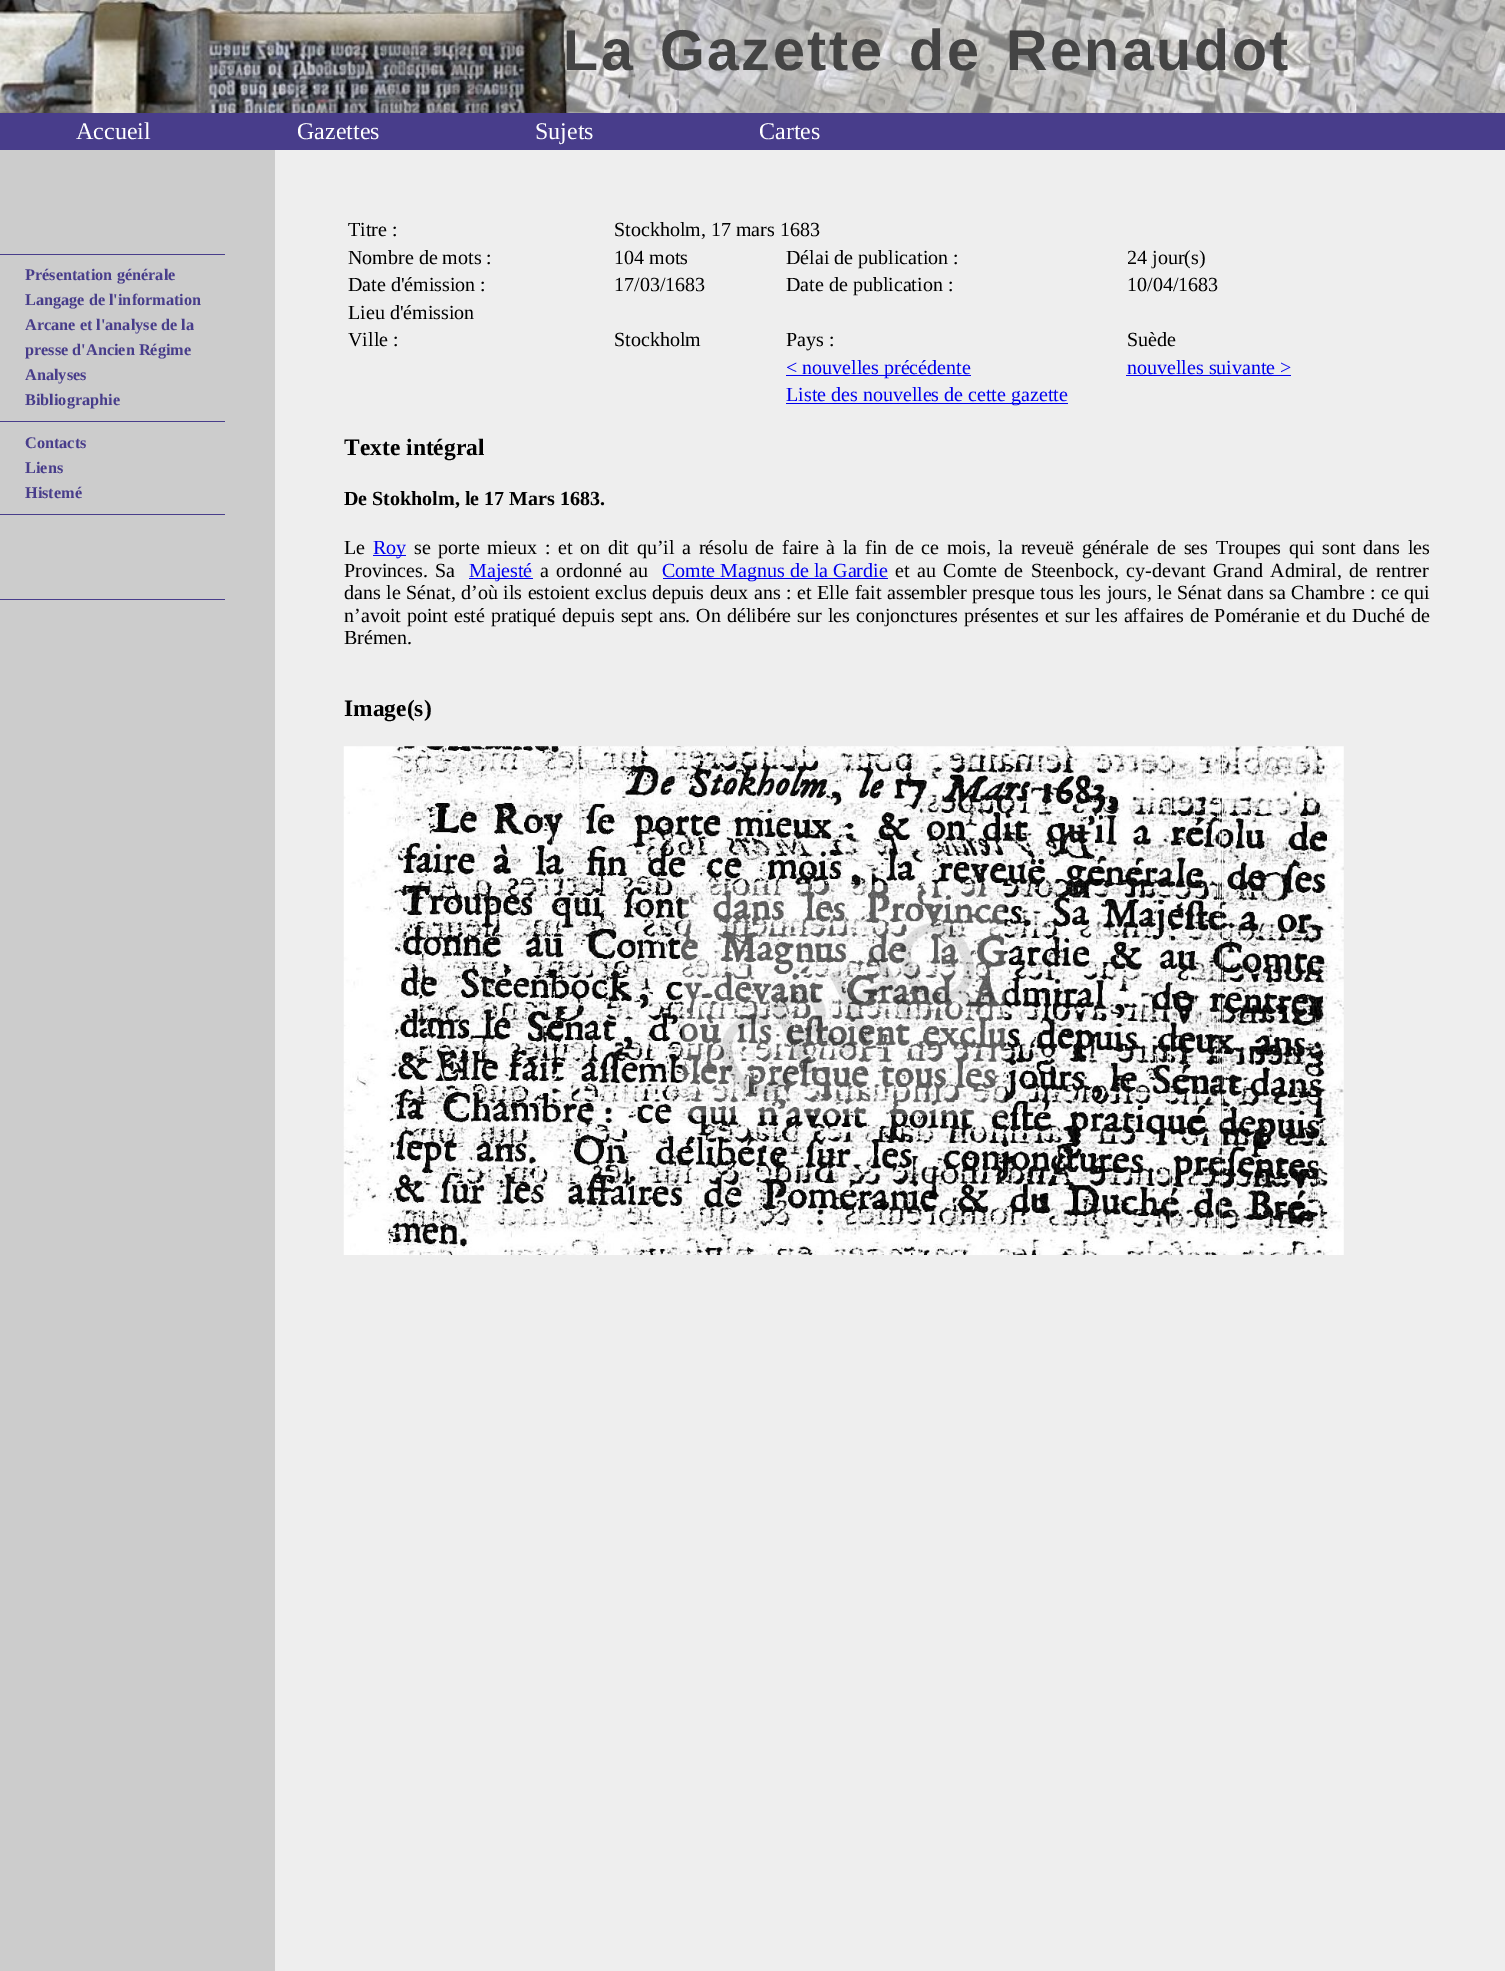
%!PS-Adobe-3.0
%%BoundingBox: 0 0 1505 1971
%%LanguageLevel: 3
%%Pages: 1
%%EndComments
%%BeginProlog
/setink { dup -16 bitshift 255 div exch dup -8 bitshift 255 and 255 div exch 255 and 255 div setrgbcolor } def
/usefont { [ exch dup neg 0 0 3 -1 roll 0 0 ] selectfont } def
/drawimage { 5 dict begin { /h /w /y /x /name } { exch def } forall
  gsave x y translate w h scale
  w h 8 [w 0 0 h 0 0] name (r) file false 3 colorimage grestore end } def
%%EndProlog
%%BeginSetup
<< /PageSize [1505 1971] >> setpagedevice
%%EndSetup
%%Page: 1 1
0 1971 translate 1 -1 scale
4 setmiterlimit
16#EEEEEE setink
0 0 1505 1971 rectfill
(img1.raw) 0 0 1505 113 drawimage
/LiberationSans-Bold 57.5 usefont
16#444444 setink
563 70 moveto 6 0 32 2.5 0 (La Gazette de Renaudot) awidthshow
16#483D8B setink
0 113 1505 37 rectfill
/LiberationSerif-Regular 24 usefont
16#FFFFFF setink
[
    [(Accueil) 76 139]
    [(Gazettes) 297 139]
    [(Sujets) 535 139]
    [(Cartes) 759 139]
] { aload pop moveto show } forall
16#CCCCCC setink
0 150 275 1821 rectfill
16#483D8B setink
0 254 225 1 rectfill
/LiberationSerif-Bold 16.25 usefont
[
    [(Présentation générale) 25 280]
    [(Langage de l'information) 25 305]
    [(Arcane et l'analyse de la) 25 330]
    [(presse d'Ancien Régime) 25 355]
    [(Analyses) 25 380]
    [(Bibliographie) 25 405]
] { aload pop moveto show } forall
0 421 225 1 rectfill
[
    [(Contacts) 25 448]
    [(Liens) 25 473]
    [(Histemé) 25 498]
] { aload pop moveto show } forall
0 514 225 1 rectfill
0 599 225 1 rectfill
/LiberationSerif-Regular 20 usefont
16#000000 setink
[
    [(Titre :) 348 236]
    [(Stockholm, 17 mars 1683) 614 236]
    [(Nombre de mots :) 348 264]
    [(104 mots) 614 264]
    [(Délai de publication :) 786 264]
    [(24 jour\(s\)) 1127 264]
    [(Date d'émission :) 348 291]
    [(17/03/1683) 614 291]
    [(Date de publication :) 786 291]
    [(10/04/1683) 1127 291]
    [(Lieu d'émission) 348 319]
    [(Ville :) 348 346]
    [(Stockholm) 614 346]
    [(Pays :) 786 346]
    [(Suède) 1127 346]
] { aload pop moveto show } forall
16#0000EE setink
786 375 185 1 rectfill
786 374 moveto (< nouvelles précédente) show
1127 374 moveto (nouvelles suivante >) show
1126 375 165 1 rectfill
786 403 282 1 rectfill
786 401 moveto (Liste des nouvelles de cette gazette) show
/LiberationSerif-Bold 23.5 usefont
16#000000 setink
344 455 moveto (Texte intégral) show
/LiberationSerif-Bold 20 usefont
344 505 moveto (De Stokholm, le 17 Mars 1683.) show
/LiberationSerif-Regular 20 usefont
344 554 moveto (Le) show
16#0000EE setink
373 555 33 1 rectfill
373 554 moveto (Roy) show
16#000000 setink
414 554 moveto 2.7 0 32 (se porte mieux : et on dit qu’il a résolu de faire à la fin de ce mois, la reveuë générale de ses Troupes qui sont dans les) widthshow
344 577 moveto 2.5 0 32 (Provinces. Sa) widthshow
16#0000EE setink
469 578 64 1 rectfill
469 577 moveto (Majesté) show
16#000000 setink
540 577 moveto 2.5 0 32 (a ordonné au) widthshow
16#0000EE setink
663 578 225 1 rectfill
662 577 moveto (Comte Magnus de la Gardie) show
16#000000 setink
895 577 moveto 2.5 0 32 (et au Comte de Steenbock, cy-devant Grand Admiral, de rentrer) widthshow
344 599 moveto 0.5 0 32 (dans le Sénat, d’où ils estoient exclus depuis deux ans : et Elle fait assembler presque tous les jours, le Sénat dans sa Chambre : ce qui) widthshow
344 622 moveto 1 0 32 (n’avoit point esté pratiqué depuis sept ans. On délibére sur les conjonctures présentes et sur les affaires de Poméranie et du Duché de) widthshow
344 644 moveto (Brémen.) show
/LiberationSerif-Bold 23.5 usefont
344 716 moveto (Image\(s\)) show
(img2.raw) 343 746 1001 509 drawimage
showpage
%%EOF
